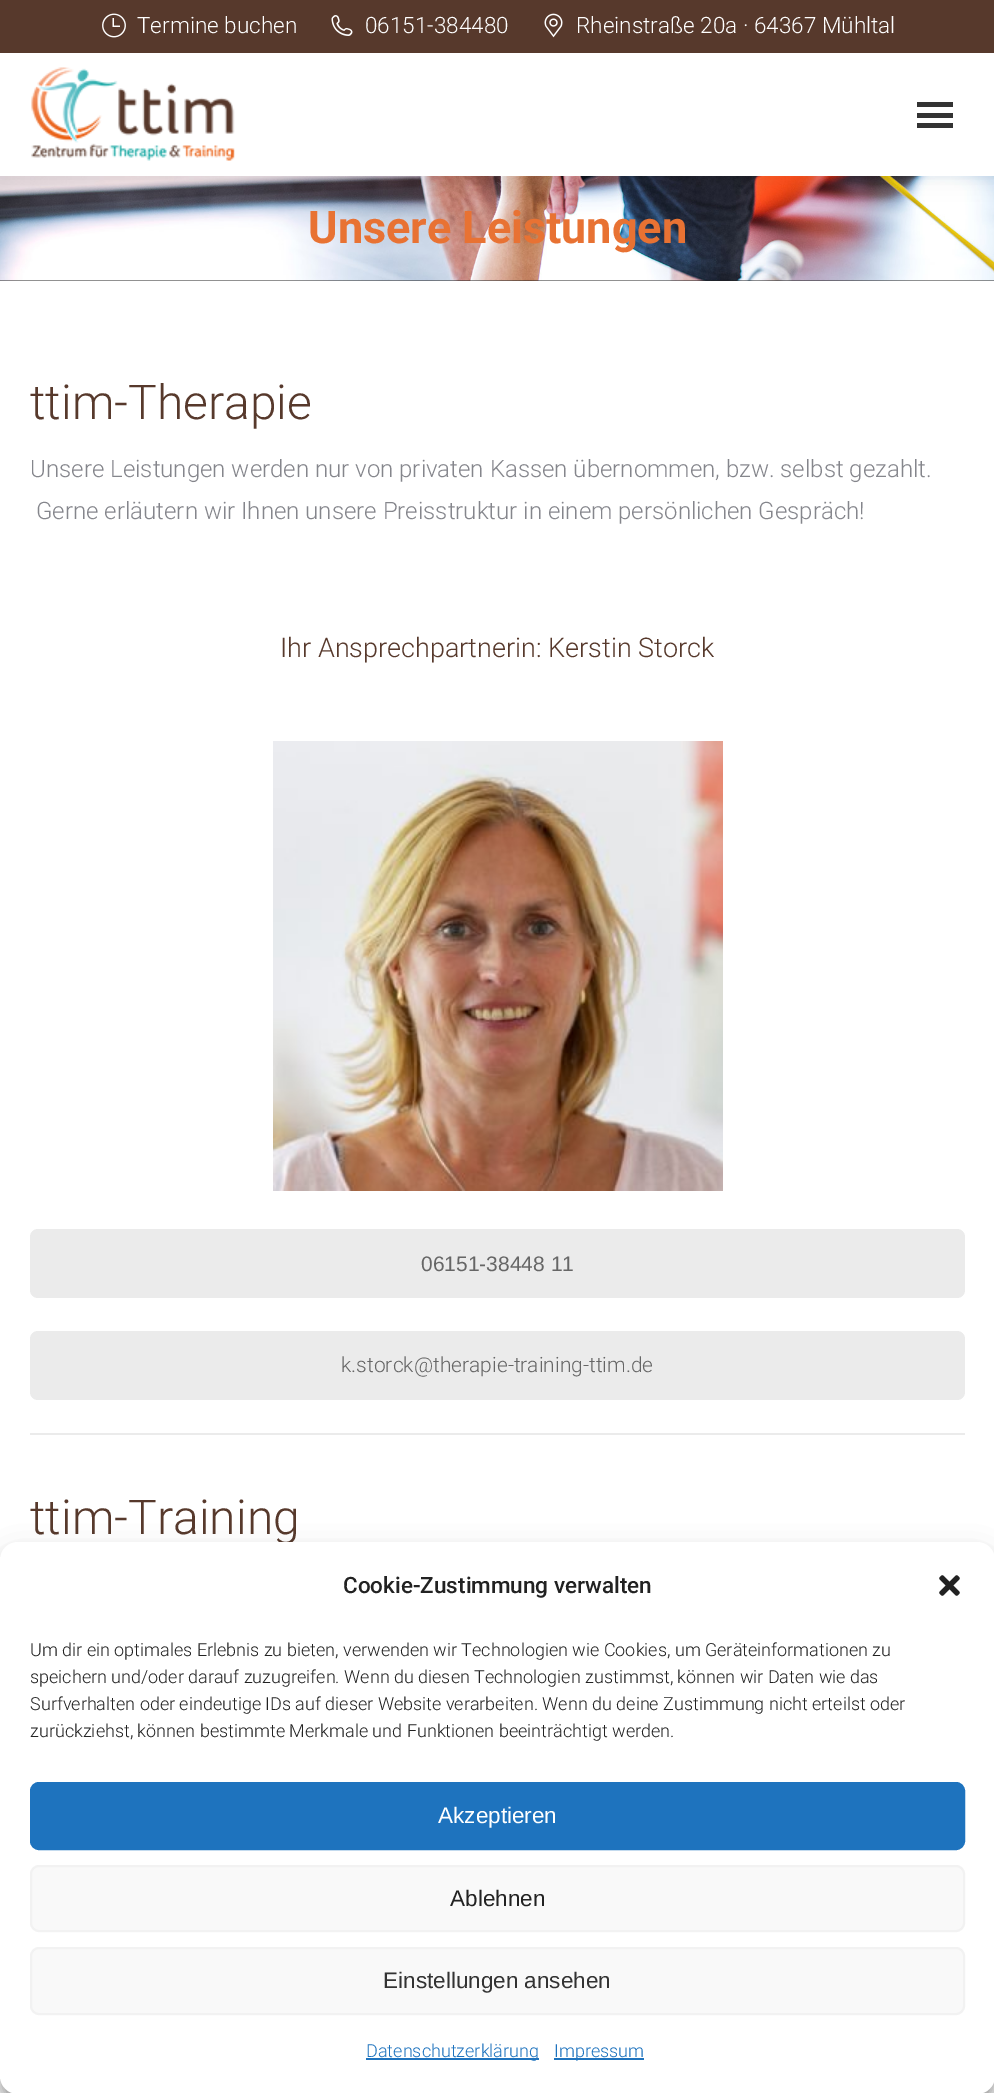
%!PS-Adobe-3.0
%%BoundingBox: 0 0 994 2093
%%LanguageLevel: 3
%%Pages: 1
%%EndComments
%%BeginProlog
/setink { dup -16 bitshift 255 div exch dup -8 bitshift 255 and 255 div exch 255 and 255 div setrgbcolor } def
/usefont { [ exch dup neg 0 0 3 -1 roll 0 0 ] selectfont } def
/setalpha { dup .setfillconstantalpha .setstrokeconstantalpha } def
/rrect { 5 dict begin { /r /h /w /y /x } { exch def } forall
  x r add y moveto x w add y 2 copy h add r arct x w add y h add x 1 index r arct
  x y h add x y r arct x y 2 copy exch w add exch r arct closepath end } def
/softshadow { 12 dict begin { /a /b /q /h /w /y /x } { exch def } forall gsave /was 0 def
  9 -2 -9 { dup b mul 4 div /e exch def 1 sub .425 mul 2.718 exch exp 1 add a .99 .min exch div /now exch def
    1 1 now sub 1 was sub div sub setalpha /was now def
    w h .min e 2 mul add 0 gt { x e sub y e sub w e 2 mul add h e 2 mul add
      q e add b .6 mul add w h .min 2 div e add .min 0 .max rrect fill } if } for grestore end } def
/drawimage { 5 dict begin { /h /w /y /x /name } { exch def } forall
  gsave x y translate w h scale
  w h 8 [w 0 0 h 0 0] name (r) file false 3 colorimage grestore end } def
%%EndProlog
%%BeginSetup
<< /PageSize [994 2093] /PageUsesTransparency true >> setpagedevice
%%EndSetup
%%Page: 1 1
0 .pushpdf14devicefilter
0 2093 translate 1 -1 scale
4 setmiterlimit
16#FFFFFF setink
0 0 994 2093 rectfill
16#222222 setink
0 280 994 1 rectfill
(img5.raw) 0 176 994 105 drawimage
16#000000 setink
-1 -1 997 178 0 11 0.07 softshadow
16#FFFFFF setink
0 53 994 123 rectfill
16#57392C setink
0 0 994 53 rectfill
(img1.raw) 102 13 24 25 drawimage
/Roboto-Light 22.5 usefont
16#FFFFFF setink
137 33 moveto (Termine buchen) show
(img2.raw) 331 15 22 21 drawimage
365 33 moveto (06151-384480) show
(img3.raw) 544 13 19 25 drawimage
576 33 moveto (Rheinstraße 20a · 64367 Mühltal) show
(img4.raw) 31 67 204 94 drawimage
[
    [917 102 36 5 16#333333]
    [917 113 36 5 16#333333]
    [917 123 36 5 16#333333]
] { aload pop setink rectfill } forall
/Roboto-Bold 45 usefont
16#E87233 setink
308 243 moveto (Unsere Leistungen) show
/Roboto-Light 48 usefont
16#57392C setink
30 419 moveto (ttim-Therapie) show
/Roboto-Light 24 usefont
16#85868C setink
30 477 moveto (Unsere Leistungen werden nur von privaten Kassen übernommen, bzw. selbst gezahlt.) show
36 519 moveto (Gerne erläutern wir Ihnen unsere Preisstruktur in einem persönlichen Gespräch!) show
/Roboto-Light 27 usefont
16#57392C setink
280 657 moveto (Ihr Ansprechpartnerin: Kerstin Storck) show
(img6.raw) 273 741 450 450 drawimage
16#EBEBEB setink
30 1229 935 69 8 rrect fill
/LiberationSans-Regular 21 usefont
16#666666 setink
421 1271 moveto (06151-38448 11) show
16#EBEBEB setink
30 1331 935 69 8 rrect fill
/Roboto-Light 21 usefont
16#666666 setink
341 1372 moveto (k.storck@therapie-training-ttim.de) show
16#EBEBEB setink
30 1433 935 2 rectfill
/Roboto-Light 48 usefont
16#57392C setink
30 1534 moveto (ttim-Training) show
16#000000 setink
0 1551 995 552 18 4.5 0.23 softshadow
0 1557 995 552 18 15 0.19 softshadow
16#FFFFFF setink
0 1542 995 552 18 rrect fill
/Roboto-Medium 22.5 usefont
16#222222 setink
343 1593 moveto (Cookie-Zustimmung verwalten) show
(img7.raw) 939 1575 21 21 drawimage
/Roboto-Light 18 usefont
[
    [(Um dir ein optimales Erlebnis zu bieten, verwenden wir Technologien wie Cookies, um Geräteinformationen zu) 30 1656]
    [(speichern und/oder darauf zuzugreifen. Wenn du diesen Technologien zustimmst, können wir Daten wie das) 30 1683]
    [(Surfverhalten oder eindeutige IDs auf dieser Website verarbeiten. Wenn du deine Zustimmung nicht erteilst oder) 30 1710]
    [(zurückziehst, können bestimmte Merkmale und Funktionen beeinträchtigt werden.) 30 1737]
] { aload pop moveto show } forall
16#1E73BE setink
31 1783 933 66 8 rrect gsave fill grestore
2 setlinewidth
stroke
/LiberationSans-Regular 22.5 usefont
16#FFFFFF setink
438 1823 moveto (Akzeptieren) show
16#F9F9F9 setink
31 1866 933 65 8 rrect gsave fill grestore
16#F2F2F2 setink
stroke
16#222222 setink
450 1906 moveto (Ablehnen) show
16#F9F9F9 setink
31 1948 933 66 8 rrect gsave fill grestore
16#F2F2F2 setink
stroke
16#333333 setink
383 1988 moveto (Einstellungen ansehen) show
16#1E73BE setink
366 2058 173 2 rectfill
/Roboto-Light 18 usefont
366 2057 moveto (Datenschutzerklärung) show
554 2058 90 2 rectfill
554 2057 moveto (Impressum) show
.poppdf14devicefilter showpage
%%EOF
